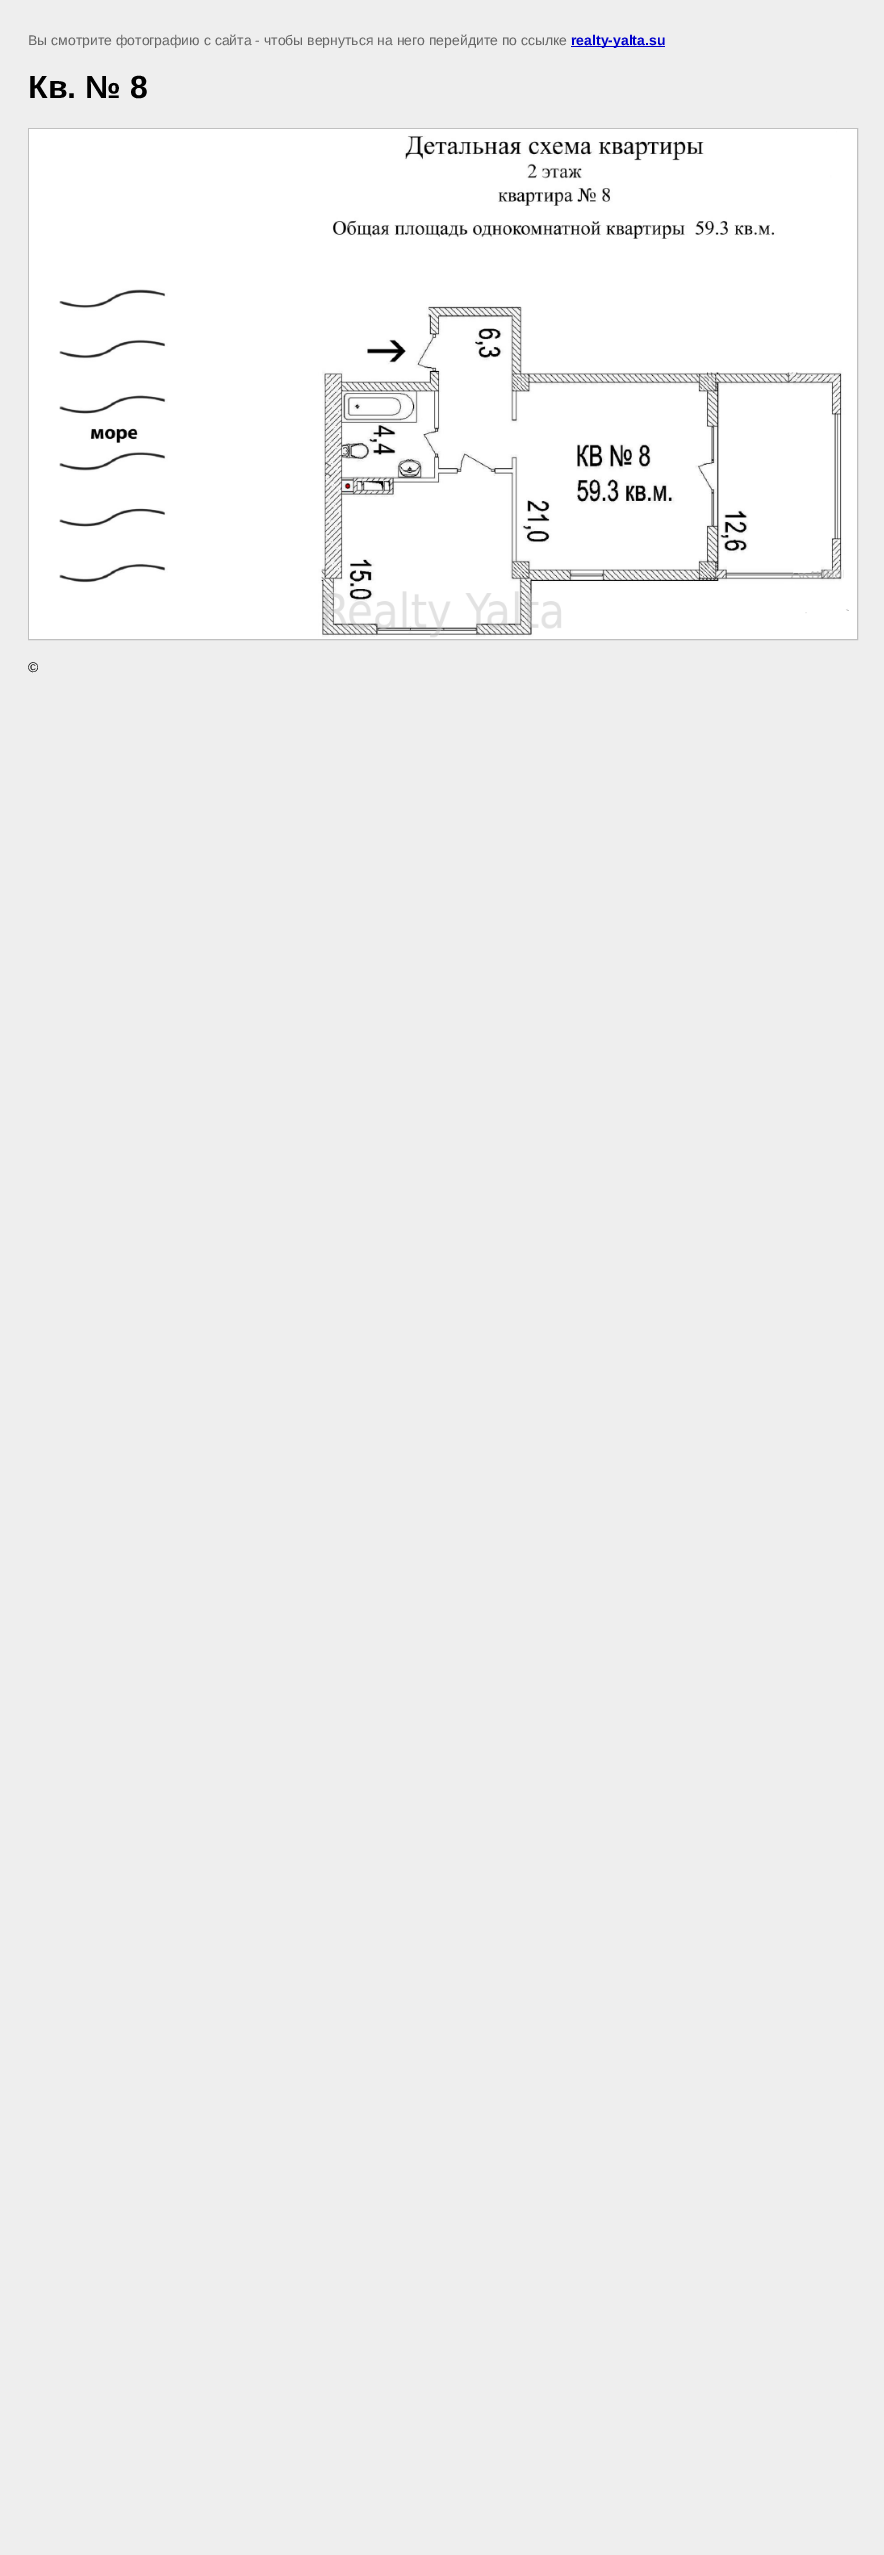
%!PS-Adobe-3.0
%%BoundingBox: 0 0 884 2555
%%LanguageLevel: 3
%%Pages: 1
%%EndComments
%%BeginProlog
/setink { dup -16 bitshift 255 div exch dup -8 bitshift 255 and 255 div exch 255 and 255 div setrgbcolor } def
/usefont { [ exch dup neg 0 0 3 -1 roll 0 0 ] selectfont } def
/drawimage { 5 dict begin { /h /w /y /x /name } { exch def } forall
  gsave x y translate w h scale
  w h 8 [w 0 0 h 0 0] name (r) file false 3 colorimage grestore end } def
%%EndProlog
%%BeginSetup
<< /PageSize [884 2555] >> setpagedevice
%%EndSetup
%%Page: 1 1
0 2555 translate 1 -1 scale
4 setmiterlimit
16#EEEEEE setink
0 0 884 2555 rectfill
/LiberationSans-Regular 14 usefont
16#666666 setink
28 45 moveto (Вы смотрите фотографию с сайта - чтобы вернуться на него перейдите по ссылке) show
16#0000CC setink
571 46 94 1 rectfill
/LiberationSans-Bold 14 usefont
571 45 moveto (realty-yalta.su) show
/LiberationSans-Bold 32 usefont
16#000000 setink
28 98 moveto (Кв. № 8) show
16#C0C0C0 setink
28.5 128.5 829 511 rectstroke
(img1.raw) 29 129 828 510 drawimage
/LiberationSans-Regular 14 usefont
16#000000 setink
28 672 moveto (©) show
showpage
%%EOF
